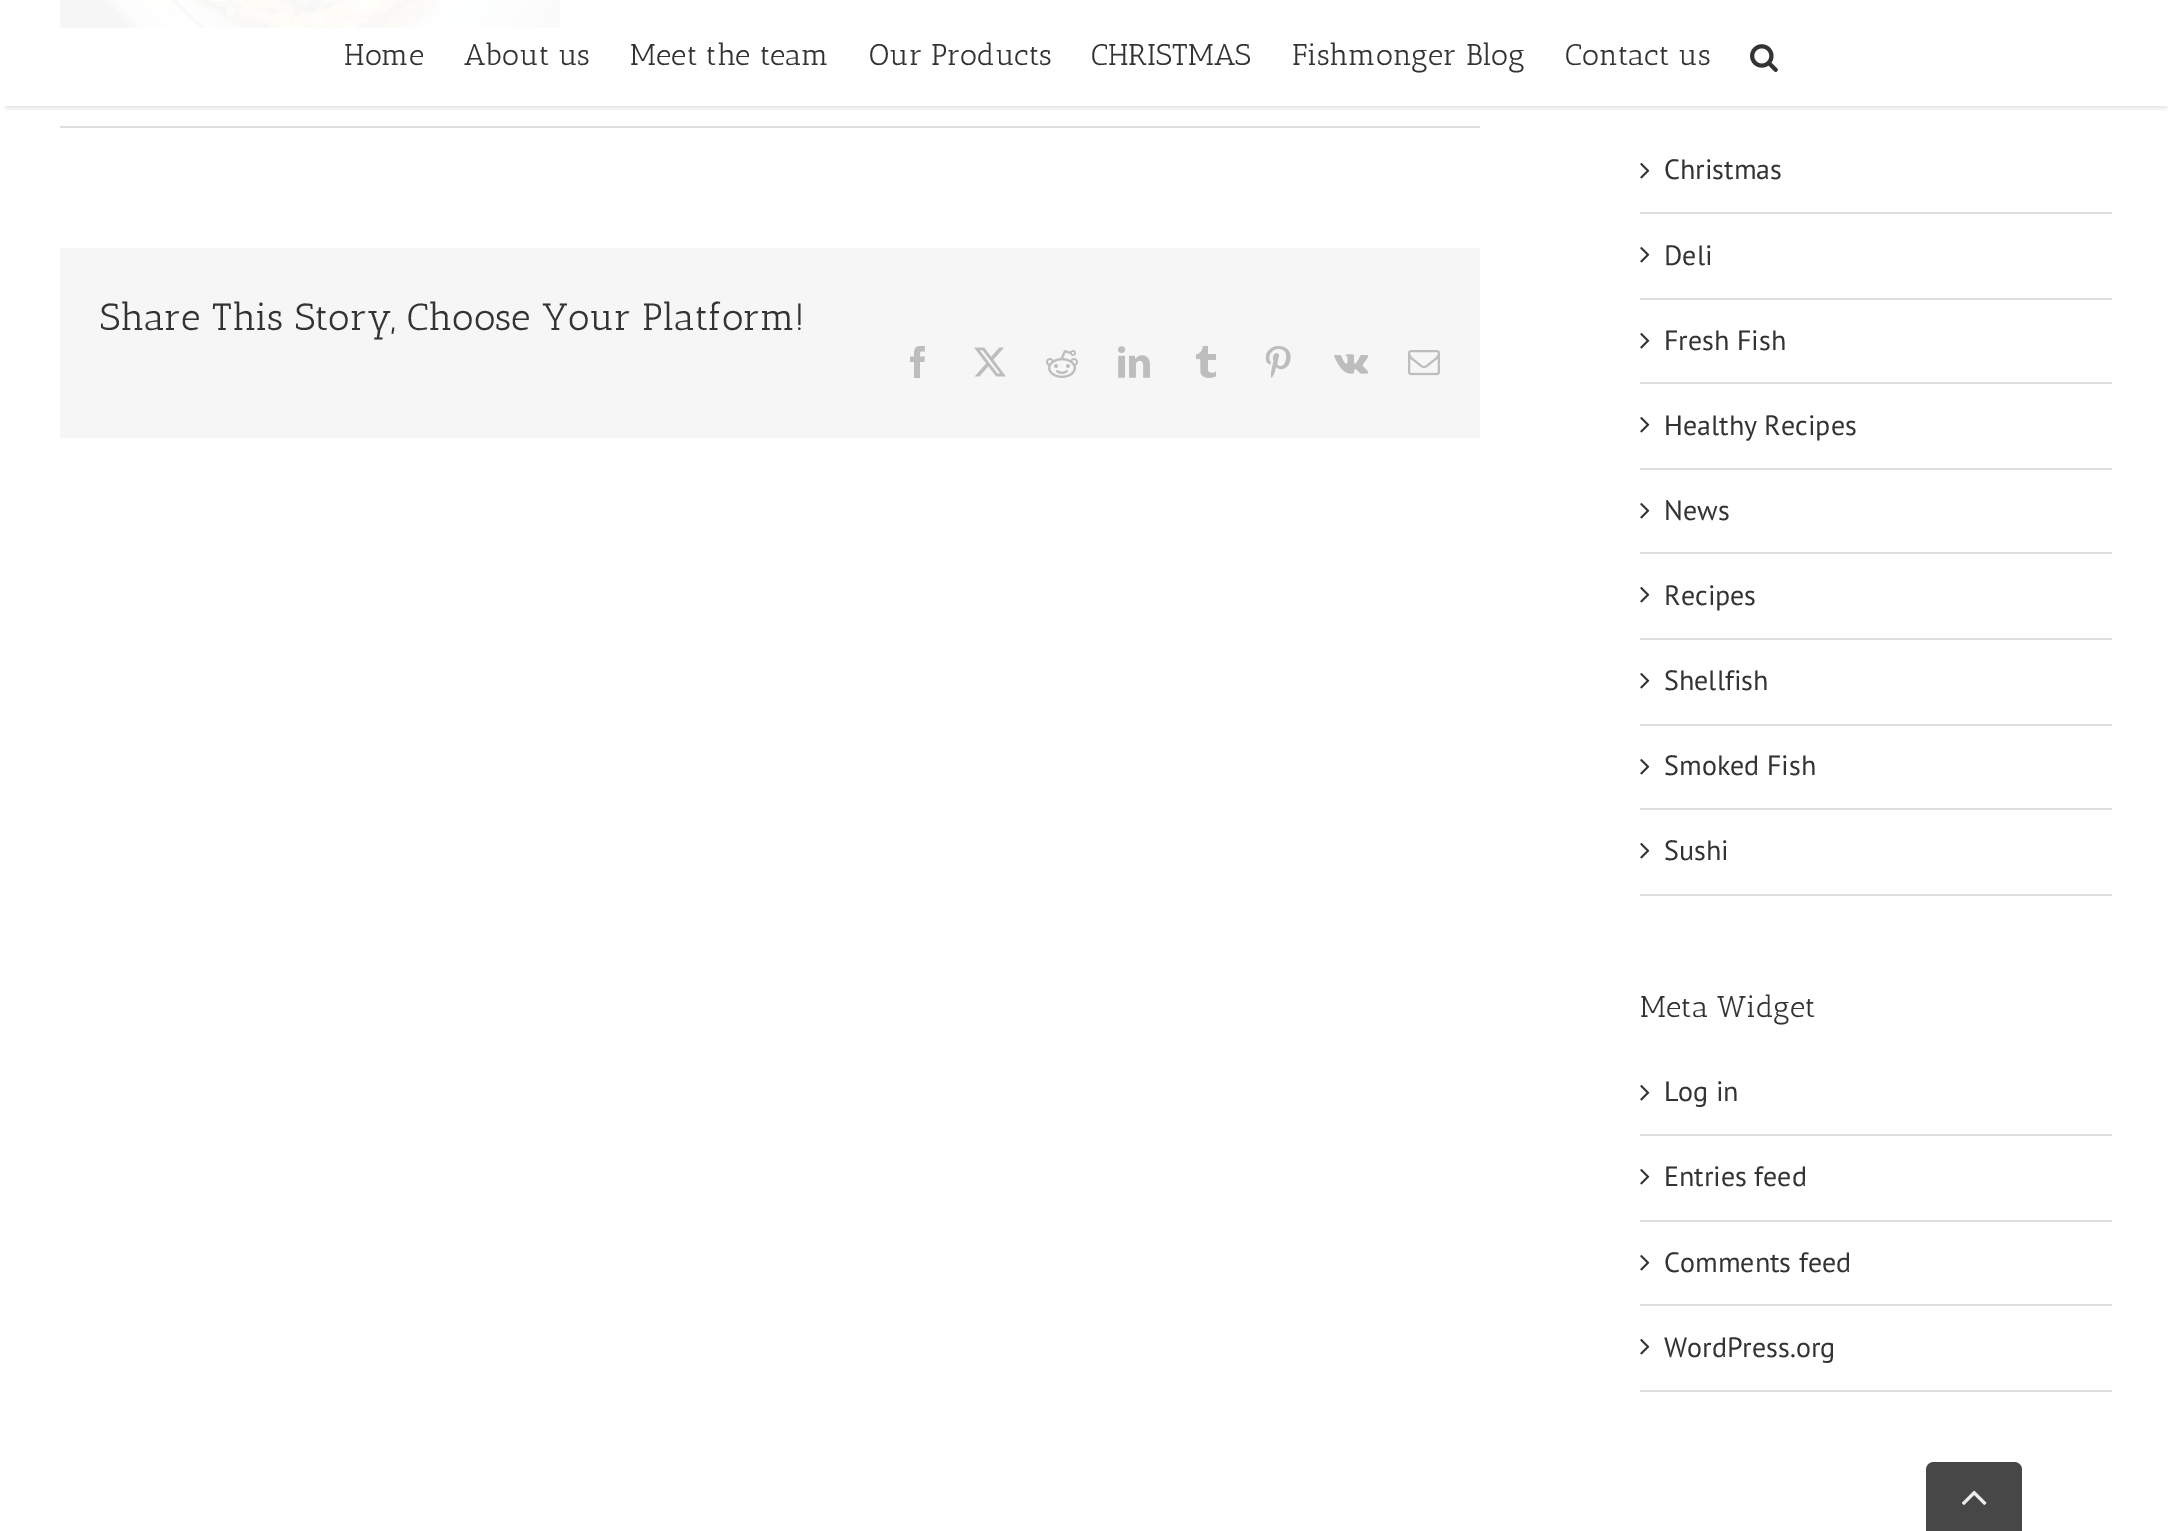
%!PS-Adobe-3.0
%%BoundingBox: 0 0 2172 1531
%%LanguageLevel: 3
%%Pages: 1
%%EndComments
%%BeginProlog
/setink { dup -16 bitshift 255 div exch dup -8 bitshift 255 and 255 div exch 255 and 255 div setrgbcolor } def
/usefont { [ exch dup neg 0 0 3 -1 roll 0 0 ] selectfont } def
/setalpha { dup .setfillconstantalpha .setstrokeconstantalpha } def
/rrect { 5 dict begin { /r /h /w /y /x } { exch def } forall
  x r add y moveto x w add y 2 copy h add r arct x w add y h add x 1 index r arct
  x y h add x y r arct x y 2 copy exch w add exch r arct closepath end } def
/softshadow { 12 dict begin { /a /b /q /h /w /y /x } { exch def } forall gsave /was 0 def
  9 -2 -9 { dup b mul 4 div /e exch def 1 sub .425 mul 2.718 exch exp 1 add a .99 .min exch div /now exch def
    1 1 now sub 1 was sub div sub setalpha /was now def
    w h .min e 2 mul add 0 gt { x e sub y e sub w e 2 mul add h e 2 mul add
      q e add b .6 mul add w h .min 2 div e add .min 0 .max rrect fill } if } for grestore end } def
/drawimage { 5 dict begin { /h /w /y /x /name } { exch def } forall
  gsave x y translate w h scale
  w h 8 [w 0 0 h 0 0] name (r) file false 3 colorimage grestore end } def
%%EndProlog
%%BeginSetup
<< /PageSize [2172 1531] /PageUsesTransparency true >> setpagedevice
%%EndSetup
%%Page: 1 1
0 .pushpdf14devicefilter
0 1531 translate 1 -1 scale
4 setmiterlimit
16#FFFFFF setink
0 0 2172 1531 rectfill
(img2.raw) 60 0 500 28 drawimage
16#E0DEDE setink
60 68 1420 2 rectfill
gsave
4 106 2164 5 rectclip
16#000000 setink
6 14 2160 94 0 3 0.12 softshadow
grestore
0.97 setalpha
16#FFFFFF setink
60 0 1420 70 rectfill
/AnticSlab-Regular 30 usefont
1 setalpha
16#333333 setink
[
    [(Home) 344 65]
    [(About us) 464 65]
    [(Meet the team) 630 65]
    [(Our Products) 869 65]
    [(CHRISTMAS) 1091 65]
    [(Fishmonger Blog) 1292 65]
    [(Contact us) 1565 65]
] { aload pop moveto show } forall
(img1.raw) 1750 44 28 28 drawimage
16#E0DEDE setink
60 126 1420 2 rectfill
16#F6F6F6 setink
60 248 1420 190 rectfill
/AnticSlab-Regular 38 usefont
16#333333 setink
100 330 moveto (Share This Story, Choose Your Platform!) show
(img3.raw) 910 346 15 32 drawimage
(img4.raw) 974 347 32 30 drawimage
(img5.raw) 1046 350 32 28 drawimage
(img6.raw) 1118 346 32 32 drawimage
(img7.raw) 1196 346 20 32 drawimage
(img8.raw) 1265 346 26 32 drawimage
(img9.raw) 1334 354 35 20 drawimage
(img10.raw) 1408 350 32 26 drawimage
16#E0DEDE setink
1640 212 472 2 rectfill
(img11.raw) 1640 163 10 16 drawimage
/PTSans-Regular 28 usefont
16#333333 setink
1664 179 moveto (Christmas) show
16#E0DEDE setink
1640 298 472 2 rectfill
(img11.raw) 1640 247 10 16 drawimage
16#333333 setink
1664 265 moveto (Deli) show
16#E0DEDE setink
1640 382 472 2 rectfill
(img11.raw) 1640 333 10 16 drawimage
16#333333 setink
1664 350 moveto (Fresh Fish) show
16#E0DEDE setink
1640 468 472 2 rectfill
(img11.raw) 1640 417 10 16 drawimage
16#333333 setink
1664 435 moveto (Healthy Recipes) show
16#E0DEDE setink
1640 552 472 2 rectfill
(img11.raw) 1640 503 10 16 drawimage
16#333333 setink
1664 520 moveto (News) show
16#E0DEDE setink
1640 638 472 2 rectfill
(img11.raw) 1640 587 10 16 drawimage
16#333333 setink
1664 605 moveto (Recipes) show
16#E0DEDE setink
1640 724 472 2 rectfill
(img11.raw) 1640 673 10 16 drawimage
16#333333 setink
1664 690 moveto (Shellfish) show
16#E0DEDE setink
1640 808 472 2 rectfill
(img11.raw) 1640 759 10 16 drawimage
16#333333 setink
1664 775 moveto (Smoked Fish) show
16#E0DEDE setink
1640 894 472 2 rectfill
(img11.raw) 1640 843 10 16 drawimage
16#333333 setink
1664 860 moveto (Sushi) show
/AnticSlab-Regular 30 usefont
1640 1017 moveto (Meta Widget) show
16#E0DEDE setink
1640 1134 472 2 rectfill
(img11.raw) 1640 1085 10 16 drawimage
/PTSans-Regular 28 usefont
16#333333 setink
1664 1101 moveto (Log in) show
16#E0DEDE setink
1640 1220 472 2 rectfill
(img11.raw) 1640 1169 10 16 drawimage
16#333333 setink
1664 1186 moveto (Entries feed) show
16#E0DEDE setink
1640 1304 472 2 rectfill
(img11.raw) 1640 1255 10 16 drawimage
16#333333 setink
1664 1272 moveto (Comments feed) show
16#E0DEDE setink
1640 1390 472 2 rectfill
(img11.raw) 1640 1339 10 16 drawimage
16#333333 setink
1664 1357 moveto (WordPress.org) show
16#474747 setink
1934 1462 moveto 2014 1462 lineto 2018.5 1462 2022 1465.5 2022 1470 curveto 2022 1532 lineto 1926 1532 lineto 1926 1470 lineto 1926 1465.5 1929.5 1462 1934 1462 curveto closepath fill
(img12.raw) 1962 1490 25 15 drawimage
.poppdf14devicefilter showpage
%%EOF
